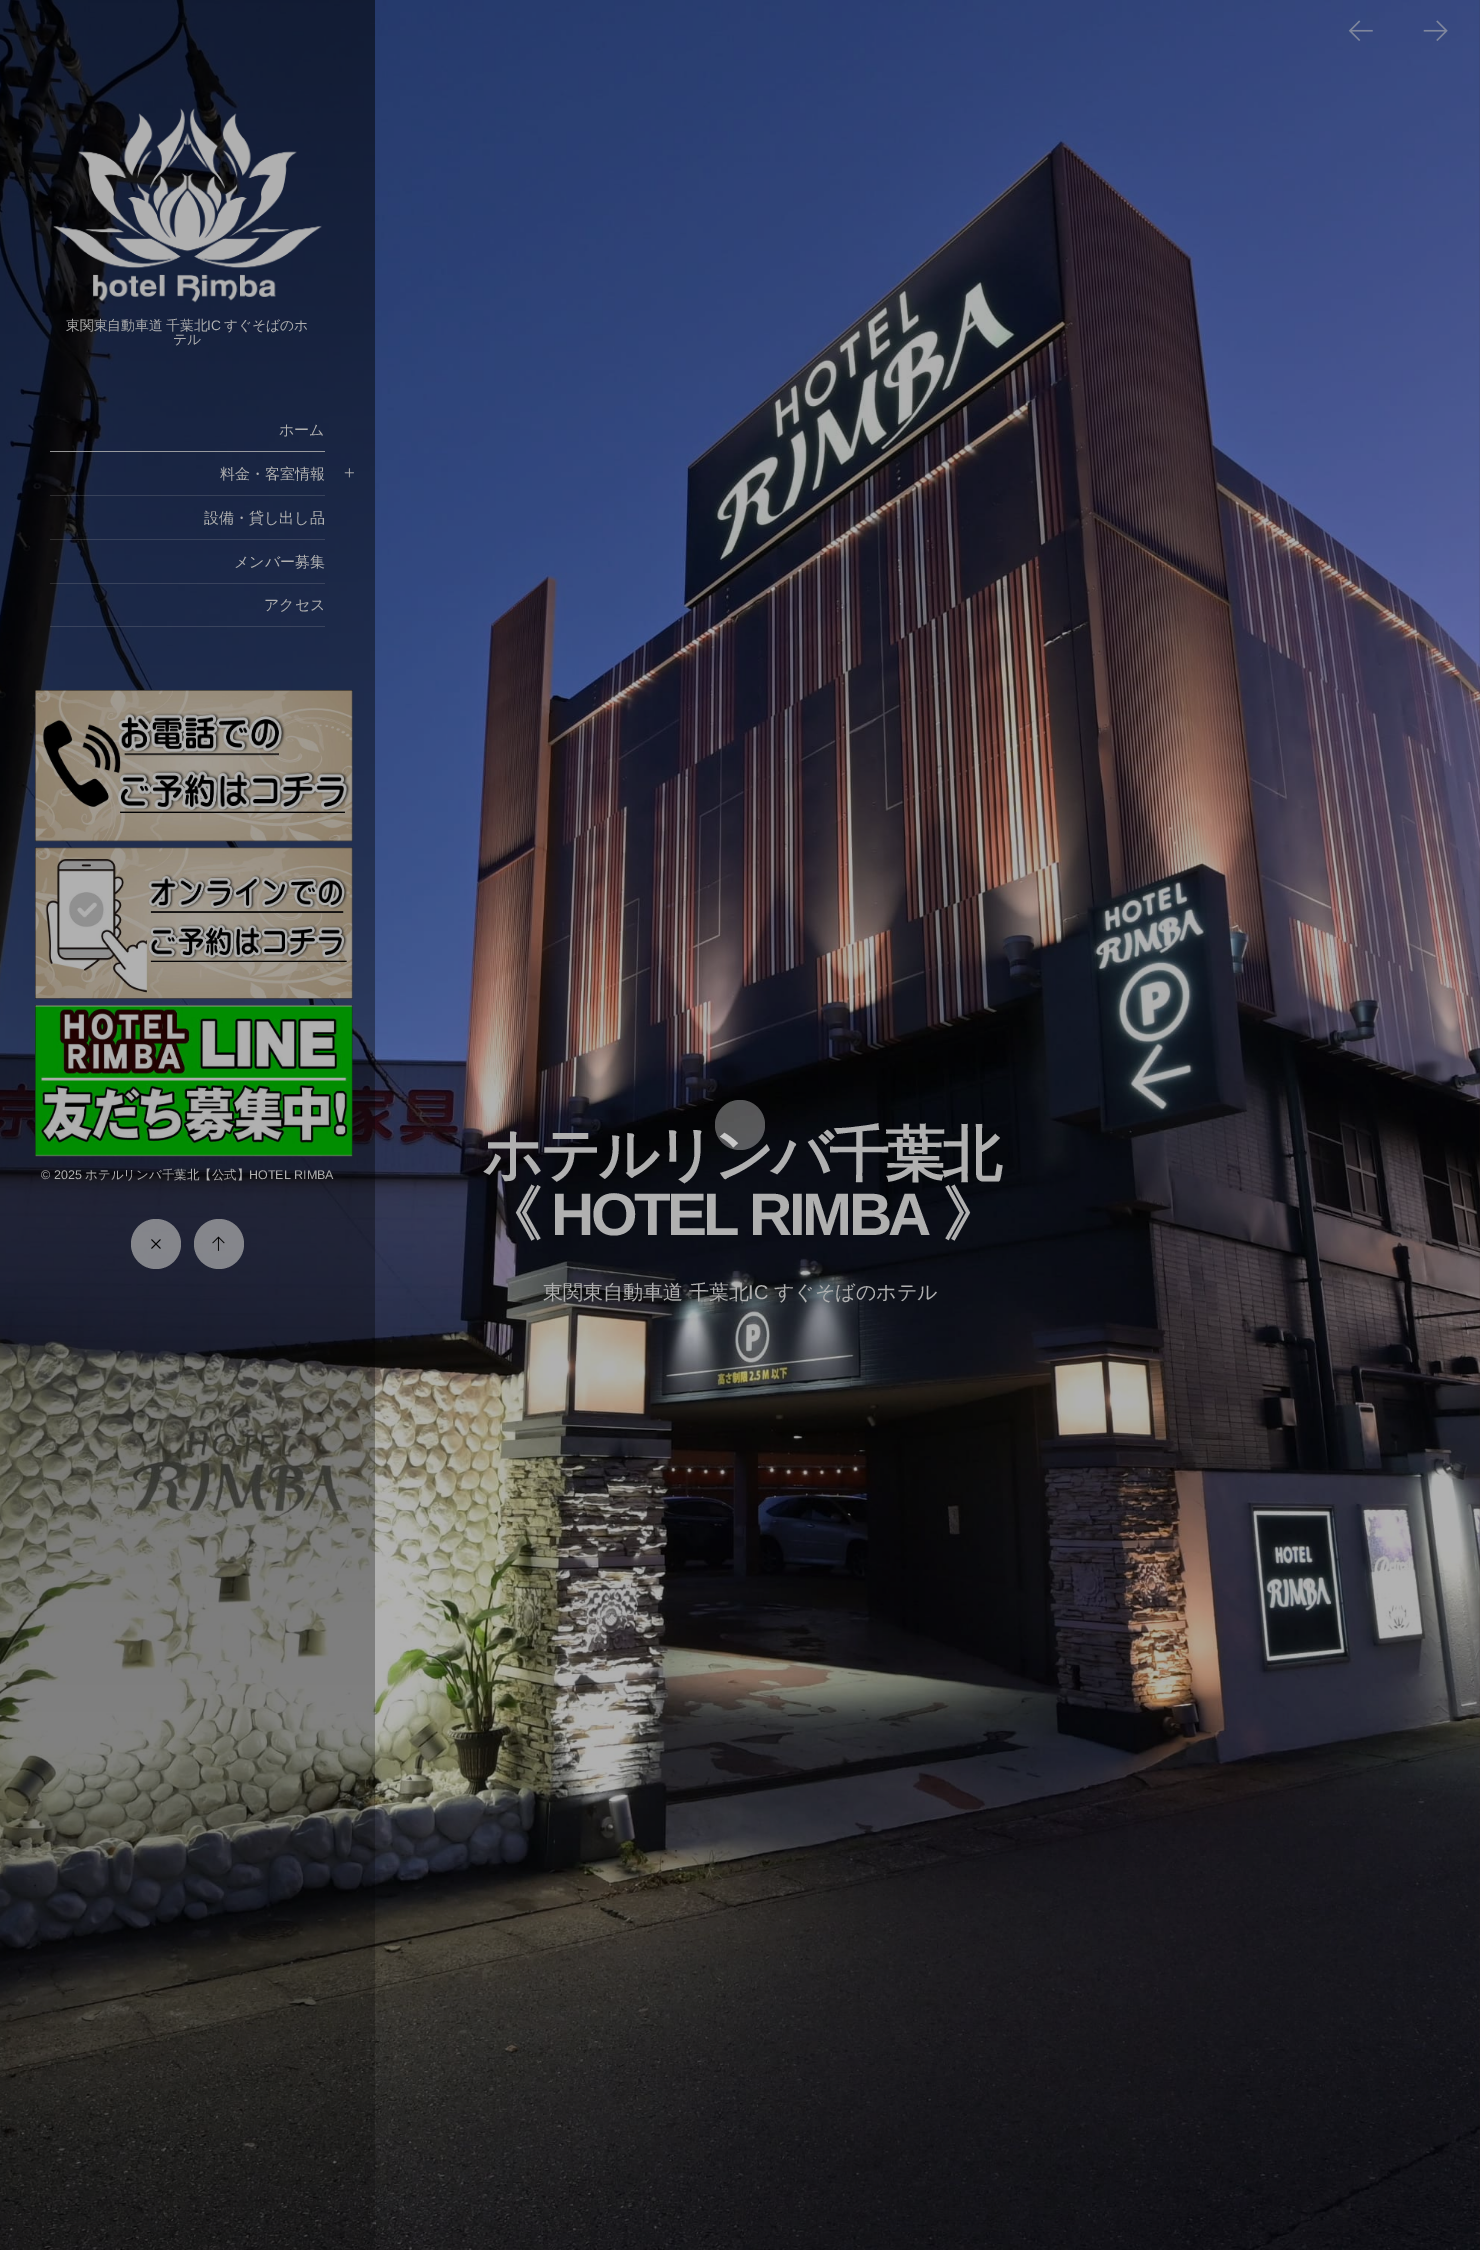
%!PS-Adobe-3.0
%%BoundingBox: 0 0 1480 2250
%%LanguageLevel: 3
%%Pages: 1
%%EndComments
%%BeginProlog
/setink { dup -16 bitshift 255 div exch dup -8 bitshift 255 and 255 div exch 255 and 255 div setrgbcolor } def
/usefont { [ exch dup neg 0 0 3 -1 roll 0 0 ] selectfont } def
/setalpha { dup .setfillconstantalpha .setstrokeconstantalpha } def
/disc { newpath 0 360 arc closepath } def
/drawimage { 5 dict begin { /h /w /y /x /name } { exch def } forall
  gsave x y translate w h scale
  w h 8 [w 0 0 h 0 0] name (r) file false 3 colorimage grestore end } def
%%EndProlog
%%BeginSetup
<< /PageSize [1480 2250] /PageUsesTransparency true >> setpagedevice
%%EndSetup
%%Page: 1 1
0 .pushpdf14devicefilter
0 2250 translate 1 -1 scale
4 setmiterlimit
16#FFFFFF setink
0 0 1480 2250 rectfill
(img8.raw) 0 0 1480 2250 drawimage
(img1.raw) 53 108 269 195 drawimage
/WenQuanYiZenHei-Medium 13.75 usefont
16#B0B0B0 setink
66 330 moveto (東関東自動車道 千葉北) show
/LiberationSans-Regular 13.75 usefont
207 330 moveto (IC) show
/WenQuanYiZenHei-Medium 13.75 usefont
224 330 moveto (すぐそばのホ) show
173 344 moveto (テル) show
0.2 setalpha
50 451 275 1 rectfill
/WenQuanYiZenHei-Medium 15 usefont
1 setalpha
279 435 moveto (ホーム) show
0.8 setalpha
50 451 275 1 rectfill
0.2 setalpha
50 495 275 1 rectfill
1 setalpha
220 479 moveto (料金・客室情報) show
(img2.raw) 344 468 10 10 drawimage
0.2 setalpha
50 539 275 1 rectfill
1 setalpha
204 523 moveto (設備・貸し出し品) show
0.2 setalpha
50 583 275 1 rectfill
1 setalpha
234 567 moveto (メンバー募集) show
0.2 setalpha
50 626 275 1 rectfill
1 setalpha
264 610 moveto (アクセス) show
(img3.raw) 35 690 318 152 drawimage
(img4.raw) 35 847 318 152 drawimage
(img5.raw) 35 1005 318 152 drawimage
/LiberationSans-Regular 12.5 usefont
41 1179 moveto (© 2025) show
/WenQuanYiZenHei-Medium 12.5 usefont
85 1179 moveto (ホテルリンバ千葉北【公式】) show
/LiberationSans-Regular 12.5 usefont
249 1179 moveto (HOTEL RIMBA) show
0.7 setalpha
156 1244 25 disc fill
1 setalpha
(img6.raw) 151 1239 10 10 drawimage
0.7 setalpha
219 1244 25 disc fill
1 setalpha
(img7.raw) 212 1236 13 15 drawimage
(img9.raw) 1348 20 25 21 drawimage
(img10.raw) 1423 20 25 21 drawimage
/WenQuanYiZenHei-Bold 60 usefont
482 1175 moveto -3.6 0 (ホテルリンバ千葉北) ashow
482 1235 moveto -3.6 0 (《) ashow
/LiberationSans-Bold 60 usefont
551 1235 moveto -3.6 0 (HOTEL RIMBA) ashow
/WenQuanYiZenHei-Bold 60 usefont
942 1235 moveto -3.6 0 (》) ashow
/WenQuanYiZenHei-Medium 20 usefont
543 1299 moveto (東関東自動車道 千葉北) show
/LiberationSans-Regular 20 usefont
748 1299 moveto (IC) show
/WenQuanYiZenHei-Medium 20 usefont
774 1299 moveto (すぐそばのホテル) show
0.18 setalpha
16#FFFFFF setink
740 1125 25 disc fill
740 1125 25 disc fill
.poppdf14devicefilter showpage
%%EOF
